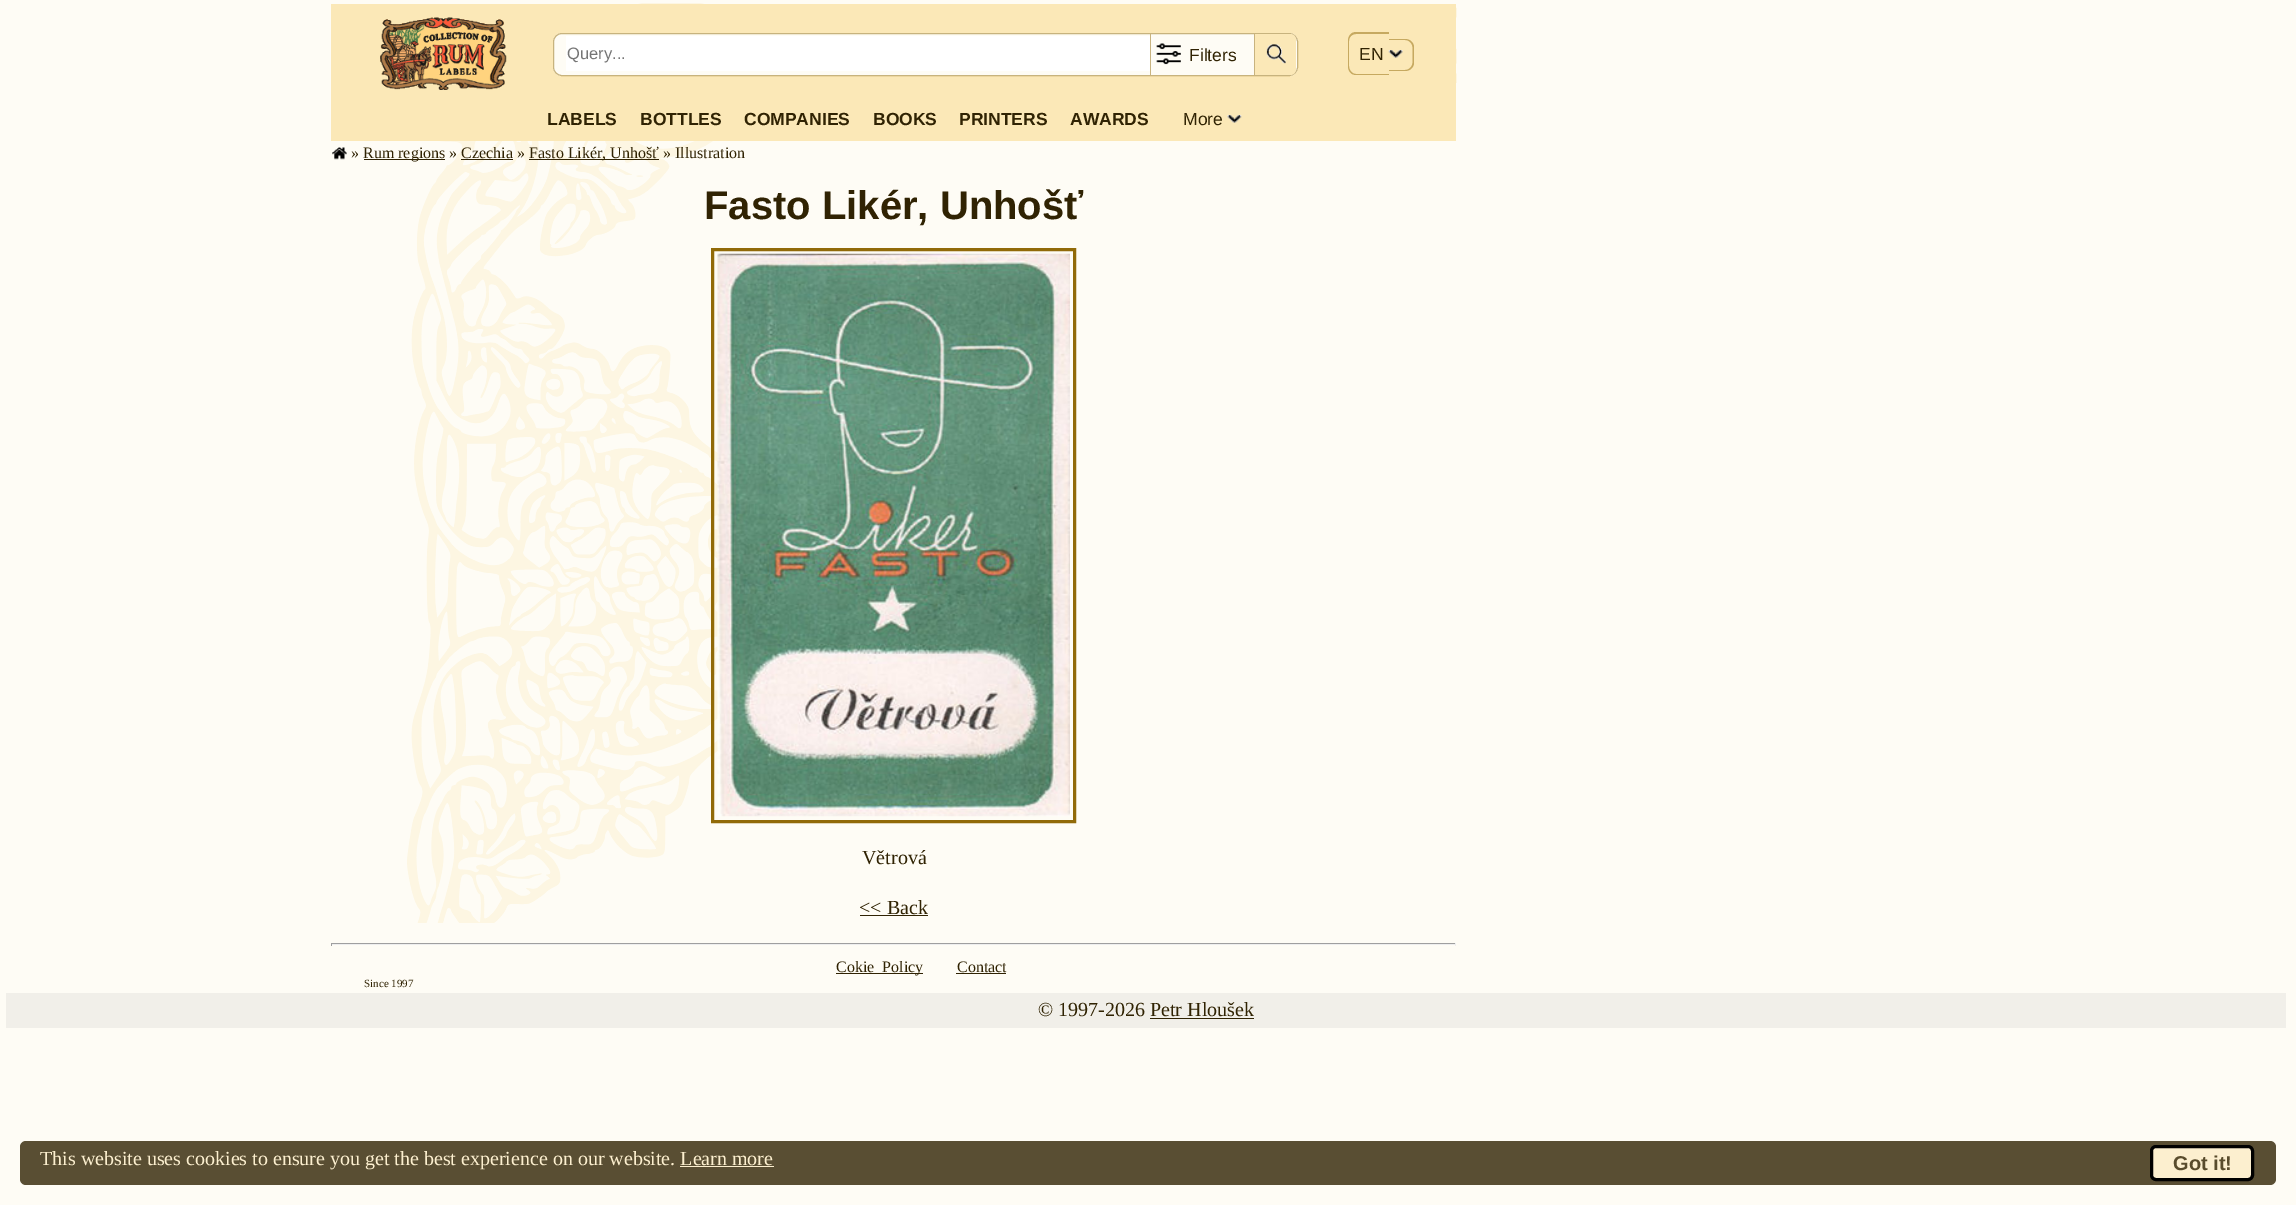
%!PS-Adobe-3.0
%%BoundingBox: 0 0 2296 1205
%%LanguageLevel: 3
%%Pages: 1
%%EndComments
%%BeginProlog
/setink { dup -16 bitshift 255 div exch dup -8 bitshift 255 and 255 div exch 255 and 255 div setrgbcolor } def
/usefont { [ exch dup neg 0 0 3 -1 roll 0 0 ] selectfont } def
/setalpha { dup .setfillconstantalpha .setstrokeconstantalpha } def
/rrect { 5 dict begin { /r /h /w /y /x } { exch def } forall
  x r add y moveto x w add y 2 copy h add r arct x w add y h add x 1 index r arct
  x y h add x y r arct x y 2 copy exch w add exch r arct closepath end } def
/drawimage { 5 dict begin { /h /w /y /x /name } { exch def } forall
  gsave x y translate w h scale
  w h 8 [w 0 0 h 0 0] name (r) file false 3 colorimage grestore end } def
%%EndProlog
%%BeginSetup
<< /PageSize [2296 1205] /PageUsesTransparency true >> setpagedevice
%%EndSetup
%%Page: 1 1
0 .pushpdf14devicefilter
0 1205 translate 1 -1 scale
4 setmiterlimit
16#FEFCF5 setink
0 0 2296 1205 rectfill
(img1.raw) 407 3 1050 920 drawimage
16#FBE8B7 setink
331 4 1125 137 rectfill
(img2.raw) 380 17 127 73 drawimage
16#FEFCF5 setink
553 33 745 43 9 rrect fill
0.5 setalpha
16#916A08 setink
553.5 33.5 744 42 8.5 rrect stroke
1 setalpha
16#FFFFFF setink
566 36 584 35 rectfill
/LiberationSans-Regular 16.5 usefont
16#757575 setink
567 59 moveto (Query...) show
16#C8B37F setink
1254 34 1 41 rectfill
1150 34 1 41 rectfill
(img3.raw) 1156 43 25 22 drawimage
/LiberationSans-Regular 17.5 usefont
16#302303 setink
1189 61 moveto (Filters) show
16#FBE8B7 setink
1255 34 moveto 1290 34 lineto 1293.5 34 1296 36.5 1296 40 curveto 1296 69 lineto 1296 72.5 1293.5 75 1290 75 curveto 1255 75 lineto closepath fill
(img4.raw) 1266 44 20 20 drawimage
16#C6A960 setink
1356 32 moveto 1389 32 lineto 1389 75 lineto 1356 75 lineto 1351 75 1348 71 1348 66 curveto 1348 41 lineto 1348 36 1351 32 1356 32 curveto closepath 1356 34 moveto 1389 34 lineto 1389 74 lineto 1356 74 lineto 1352 74 1349 70 1349 66 curveto 1349 41 lineto 1349 37 1352 34 1356 34 curveto closepath eofill
16#302303 setink
1359 60 moveto (EN) show
16#C6A960 setink
1389 39 moveto 1405 39 lineto 1410 39 1414 42.5 1414 47.5 curveto 1414 62.5 lineto 1414 67.5 1410 71 1405 71 curveto 1389 71 lineto closepath 1389 40 moveto 1405 40 lineto 1409 40 1412.5 43.5 1412.5 47.5 curveto 1412.5 62.5 lineto 1412.5 66.5 1409 70 1405 70 curveto 1389 70 lineto closepath eofill
(img5.raw) 1388 50 15 8 drawimage
/LiberationSans-Bold 17.5 usefont
16#302303 setink
[
    [(LABELS) 547 125]
    [(BOTTLES) 640 125]
    [(COMPANIES) 744 125]
    [(BOOKS) 873 125]
    [(PRINTERS) 959 125]
    [(AWARDS) 1070 125]
] { aload pop moveto show } forall
/LiberationSans-Regular 17.5 usefont
1183 125 moveto (More) show
(img6.raw) 1227 115 15 8 drawimage
(img7.raw) 332 147 15 13 drawimage
/LiberationSerif-Regular 16 usefont
351 158 moveto (») show
364 159 81 1 rectfill
363 158 moveto (Rum regions » Czechia ») show
529 159 130 1 rectfill
529 158 moveto (Fasto Likér, Unhošť » Illustration) show
461 159 52 1 rectfill
/LiberationSans-Bold 40 usefont
704 219 moveto (Fasto Likér, Unhošť) show
16#916A08 setink
3 setlinewidth
712.5 249.5 362 572 rectstroke
(img8.raw) 717 253 353 564 drawimage
/LiberationSerif-Regular 20 usefont
16#302303 setink
862 864 moveto (Větrová) show
859 914 moveto (<< Back) show
[
    [860 915 68 1 16#302303]
    [331 943 1125 1 16#9F9F9F]
    [1455 943 1 3 16#EEEEEE]
    [331 944 1125 1 16#EEEEEE]
    [331 943 1 3 16#9F9F9F]
    [836 973 87 1 16#302303]
] { aload pop setink rectfill } forall
/LiberationSerif-Regular 16 usefont
836 972 moveto (Cokie  Policy) show
957 972 moveto (Contact) show
956 973 50 1 rectfill
/LiberationSerif-Regular 11 usefont
364 987 moveto (Since 1997) show
16#F1EFE9 setink
6 993 2280 35 rectfill
/LiberationSerif-Regular 20 usefont
16#302303 setink
1038 1016 moveto (© 1997-2026 Petr Hloušek) show
1150 1018 104 1 rectfill
16#594E33 setink
20 1141 2256 44 6 rrect fill
16#FCEFCF setink
40 1165 moveto (This website uses cookies to ensure you get the best experience on our website. Learn more) show
680 1166 94 1 rectfill
2151.5 1146.5 101 33 4.5 rrect gsave fill grestore
16#000000 setink
stroke
/LiberationSans-Bold 20 usefont
16#594C2C setink
2173 1170 moveto (Got it!) show
.poppdf14devicefilter showpage
%%EOF
